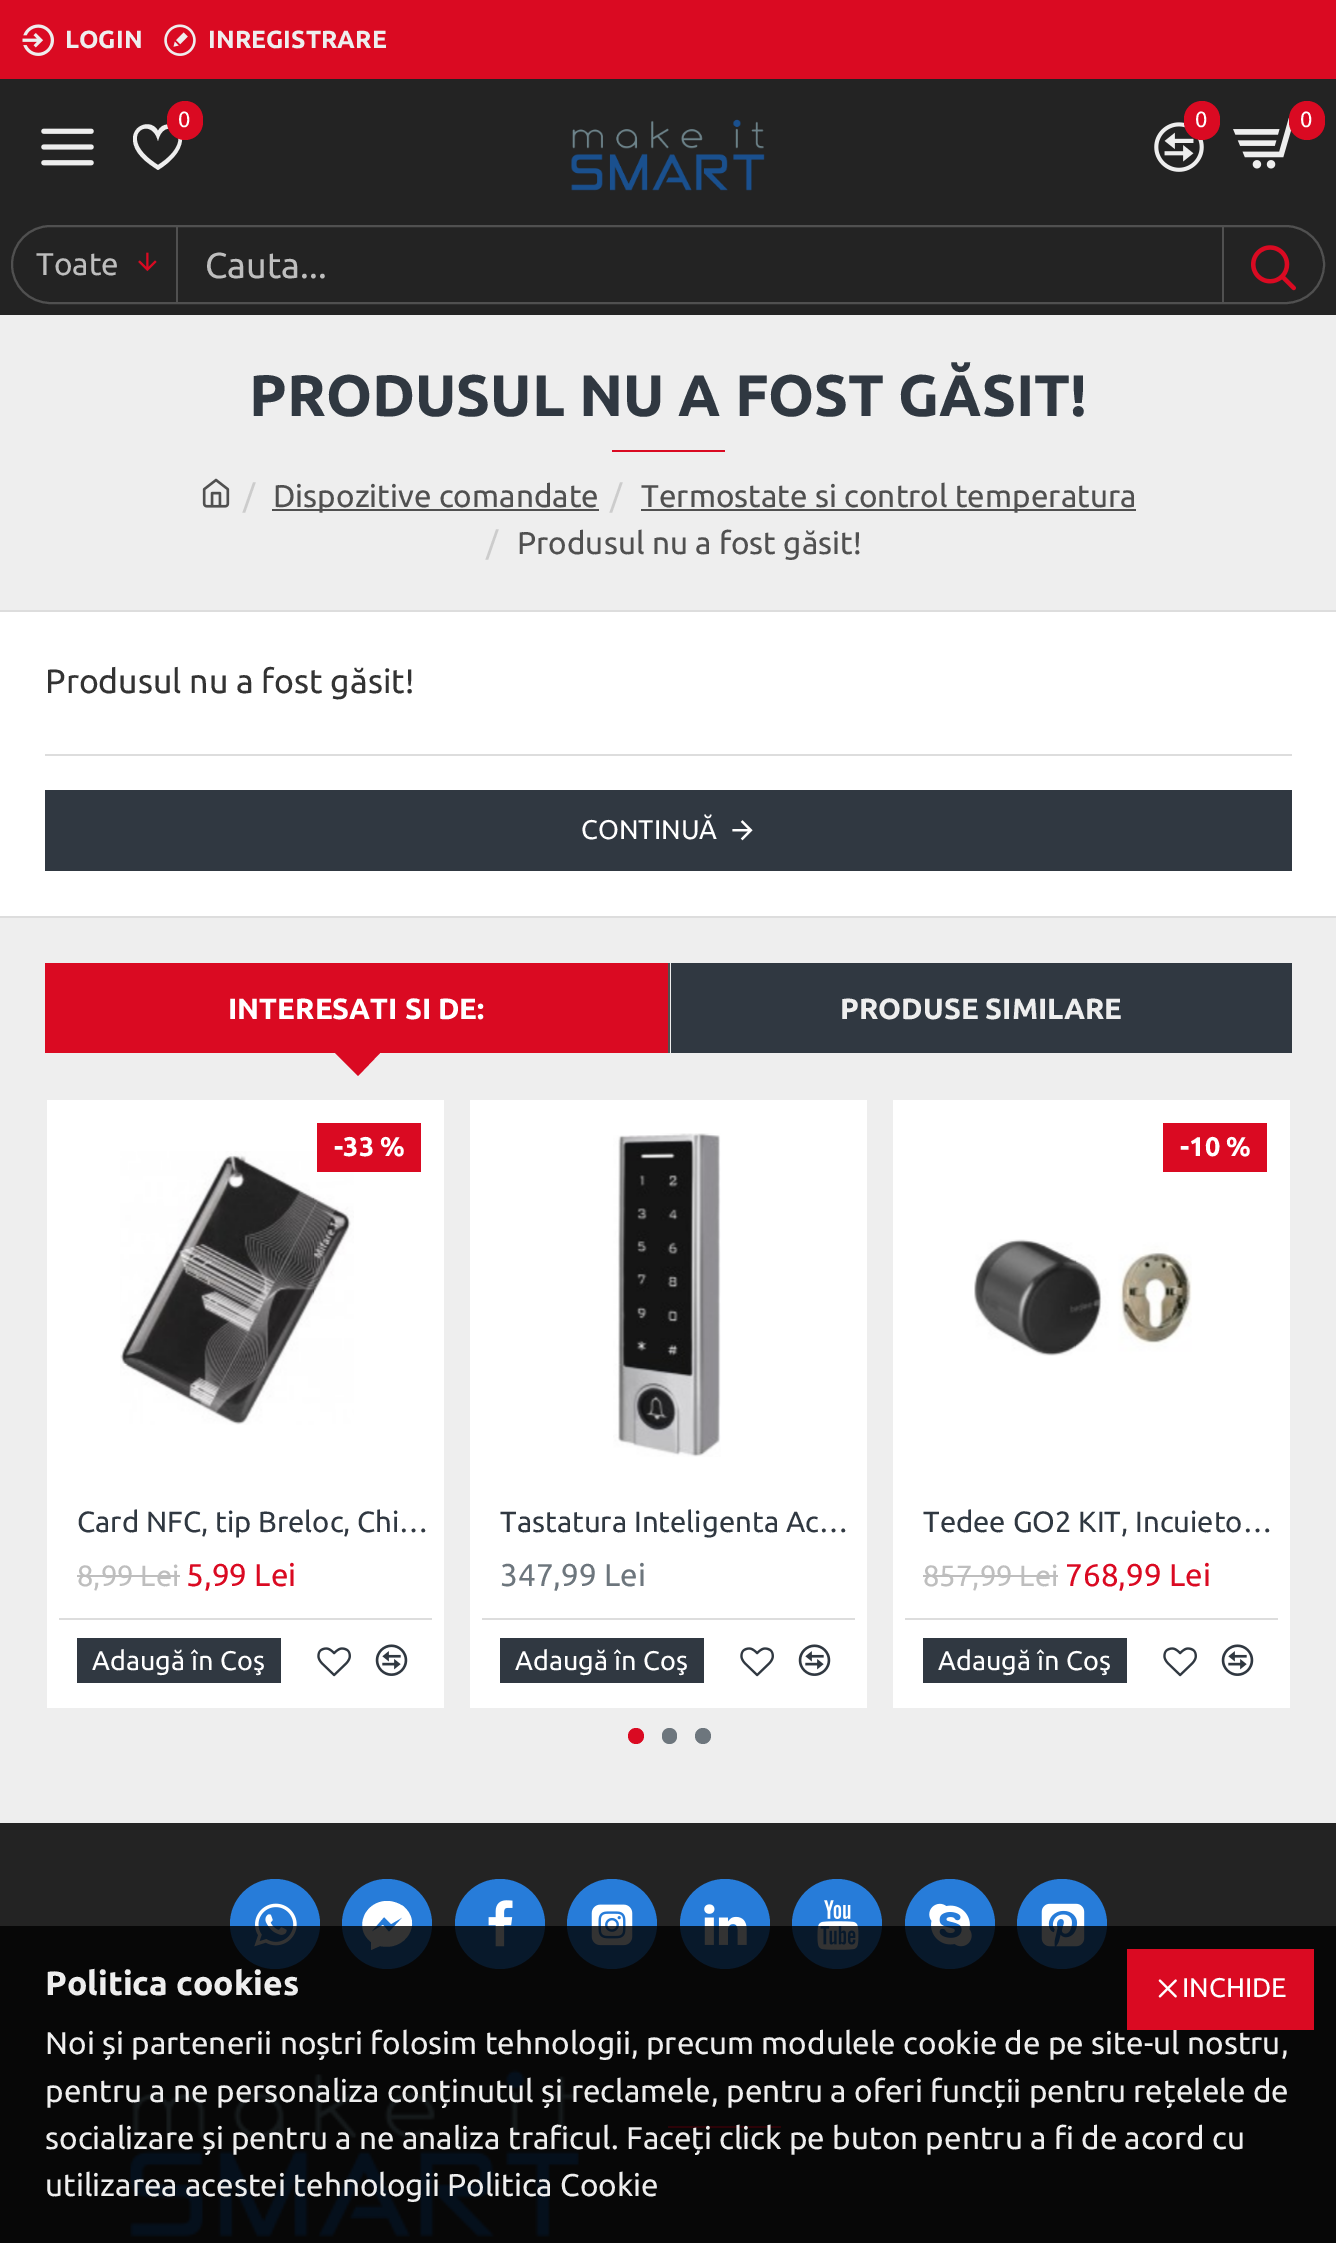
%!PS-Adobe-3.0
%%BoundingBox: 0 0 1336 2243
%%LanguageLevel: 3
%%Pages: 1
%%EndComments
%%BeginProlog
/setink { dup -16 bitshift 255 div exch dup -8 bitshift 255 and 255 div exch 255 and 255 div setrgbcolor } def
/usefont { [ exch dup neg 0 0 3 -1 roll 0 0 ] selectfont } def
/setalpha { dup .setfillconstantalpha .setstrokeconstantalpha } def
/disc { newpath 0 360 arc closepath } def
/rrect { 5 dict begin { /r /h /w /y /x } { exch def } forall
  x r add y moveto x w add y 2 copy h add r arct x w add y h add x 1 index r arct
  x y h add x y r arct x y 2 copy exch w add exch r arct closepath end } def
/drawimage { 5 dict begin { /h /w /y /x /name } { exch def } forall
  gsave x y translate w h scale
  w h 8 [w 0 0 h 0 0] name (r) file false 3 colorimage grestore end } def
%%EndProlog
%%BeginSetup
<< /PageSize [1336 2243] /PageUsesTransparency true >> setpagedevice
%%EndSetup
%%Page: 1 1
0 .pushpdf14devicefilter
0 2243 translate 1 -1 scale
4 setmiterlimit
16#FFFFFF setink
0 0 1336 2243 rectfill
16#DA0A22 setink
0 0 1336 79 rectfill
(img1.raw) 22 24 32 32 drawimage
/Ubuntu-Bold 24.75 usefont
16#EEEEEE setink
65 48 moveto (LOGIN) show
(img2.raw) 164 24 32 32 drawimage
208 48 moveto (INREGISTRARE) show
16#232323 setink
0 79 1336 236 rectfill
(img3.raw) 41 128 53 38 drawimage
16#EEEEEE setink
158 141 moveto 164 113 201 137 158 165 curveto 114 137 151 113 158 141 curveto closepath 133 139 moveto 133 153 147 163 158 170 curveto 168 164 182 152 182 139 curveto 182 136 182 133 180 130 curveto 174 123 162 122 158 131 curveto 152 119 133 124 133 139 curveto closepath fill
16#DA0A22 setink
167 101 36 39 18 rrect fill
/Ubuntu-Regular 22 usefont
16#FFFFFF setink
178 127 moveto (0) show
(img4.raw) 571 119 194 72 drawimage
(img5.raw) 1154 122 50 50 drawimage
16#DA0A22 setink
1184 101 36 39 18 rrect fill
16#FFFFFF setink
1195 127 moveto (0) show
(img6.raw) 1233 117 59 52 drawimage
16#DA0A22 setink
1289 101 36 39 18 rrect fill
16#FFFFFF setink
1300 127 moveto (0) show
16#505050 setink
2 setlinewidth
12 226 1312 77 38.5 rrect stroke
176 227 2 75 rectfill
/Ubuntu-Regular 31.5 usefont
16#BEBEBE setink
36 275 moveto (Toate) show
(img7.raw) 138 252 19 20 drawimage
/Ubuntu-Regular 36 usefont
205 278 moveto (Cauta...) show
16#505050 setink
1222 227 2 75 rectfill
(img8.raw) 1251 245 45 46 drawimage
16#EEEEEE setink
0 315 1336 295 rectfill
/Ubuntu-Bold 58.5 usefont
16#303841 setink
249 416 moveto (PRODUSUL NU A FOST GĂSIT!) show
16#DA0A22 setink
612 450 113 2 rectfill
16#DDDDDD setink
0 610 1336 2 rectfill
(img9.raw) 202 478 28 30 drawimage
/Ubuntu-Regular 31.5 usefont
16#CCCCCC setink
243 507 moveto (/) show
16#505050 setink
272 509 327 2 rectfill
273 507 moveto (Dispozitive comandate) show
16#CCCCCC setink
610 507 moveto (/) show
16#505050 setink
641 509 495 2 rectfill
641 507 moveto (Termostate si control temperatura) show
16#CCCCCC setink
486 554 moveto (/) show
16#505050 setink
517 554 moveto (Produsul nu a fost găsit!) show
/Ubuntu-Regular 33.75 usefont
16#333333 setink
45 693 moveto (Produsul nu a fost găsit!) show
16#DDDDDD setink
45 754 1247 2 rectfill
16#303841 setink
45 790 1247 81 rectfill
/Ubuntu-Regular 27 usefont
16#FFFFFF setink
581 839 moveto (CONTINUĂ) show
(img10.raw) 732 820 21 21 drawimage
[
    [0 918 1336 905 16#EEEEEE]
    [0 916 1336 2 16#DDDDDD]
    [45 963 623 90 16#DA0A22]
] { aload pop setink rectfill } forall
/Ubuntu-Bold 29.25 usefont
16#FFFFFF setink
228 1019 moveto (INTERESATI SI DE:) show
16#DA0A22 setink
335 1053 moveto 380 1053 lineto 358 1076 lineto closepath fill
16#505050 setink
668 963 2 90 rectfill
16#303841 setink
671 963 621 90 rectfill
16#EEEEEE setink
840 1019 moveto (PRODUSE SIMILARE) show
16#FFFFFF setink
47 1100 397 608 rectfill
(img11.raw) 120 1151 234 274 drawimage
16#DA0A22 setink
317 1123 104 49 rectfill
/Ubuntu-Bold 27 usefont
16#FFFFFF setink
334 1156 moveto (-33 %) show
/Ubuntu-Regular 29.25 usefont
16#303841 setink
77 1532 moveto (Card NFC, tip Breloc, Chi…) show
16#BEBEBE setink
77 1586 moveto (8,99 Lei) show
77 1575 103 2 rectfill
/Ubuntu-Regular 31.5 usefont
16#DA0A22 setink
186 1586 moveto (5,99 Lei) show
16#DDDDDD setink
59 1618 373 2 rectfill
16#303841 setink
77 1638 204 45 rectfill
/Ubuntu-Regular 27 usefont
16#FFFFFF setink
92 1670 moveto (Adaugă în Coş) show
(img12.raw) 317 1647 34 30 drawimage
(img13.raw) 375 1644 33 32 drawimage
470 1100 397 608 rectfill
(img14.raw) 613 1133 108 324 drawimage
/Ubuntu-Regular 29.25 usefont
16#303841 setink
500 1532 moveto (Tastatura Inteligenta Ac…) show
/Ubuntu-Regular 31.5 usefont
16#6D767D setink
500 1586 moveto (347,99 Lei) show
16#DDDDDD setink
482 1618 373 2 rectfill
16#303841 setink
500 1638 204 45 rectfill
/Ubuntu-Regular 27 usefont
16#FFFFFF setink
515 1670 moveto (Adaugă în Coş) show
(img12.raw) 740 1647 34 30 drawimage
(img13.raw) 798 1644 33 32 drawimage
893 1100 397 608 rectfill
16#DA0A22 setink
1163 1123 104 49 rectfill
/Ubuntu-Bold 27 usefont
16#FFFFFF setink
1180 1156 moveto (-10 %) show
(img15.raw) 974 1239 218 117 drawimage
/Ubuntu-Regular 29.25 usefont
16#303841 setink
923 1532 moveto (Tedee GO2 KIT, Incuieto…) show
16#BEBEBE setink
923 1586 moveto (857,99 Lei) show
923 1575 135 2 rectfill
/Ubuntu-Regular 31.5 usefont
16#DA0A22 setink
1065 1586 moveto (768,99 Lei) show
16#DDDDDD setink
905 1618 373 2 rectfill
16#303841 setink
923 1638 204 45 rectfill
/Ubuntu-Regular 27 usefont
16#FFFFFF setink
938 1670 moveto (Adaugă în Coş) show
(img12.raw) 1163 1647 34 30 drawimage
(img13.raw) 1221 1644 33 32 drawimage
16#DA0A22 setink
636 1736 8 disc fill
16#6D767D setink
662 1728 15 16 7.5 rrect fill
703 1736 8 disc fill
16#232323 setink
0 1823 1336 420 rectfill
16#277CD9 setink
275 1924 45 disc fill
(img16.raw) 254 1903 43 44 drawimage
387 1924 45 disc fill
16#FFFFFF setink
387 1901 moveto 365 1901 353 1928 371 1942 curveto 371 1950 lineto 380 1946 lineto 405 1952 424 1923 403 1906 curveto 398 1903 393 1901 387 1901 curveto closepath 389 1932 moveto 383 1925 lineto 371 1932 lineto 384 1917 lineto 391 1924 lineto 403 1917 lineto closepath fill
16#277CD9 setink
500 1924 45 disc fill
(img17.raw) 488 1900 25 47 drawimage
612 1924 45 disc fill
(img18.raw) 591 1904 42 42 drawimage
725 1924 45 disc fill
(img19.raw) 704 1904 43 41 drawimage
837 1924 45 disc fill
(img20.raw) 817 1900 42 50 drawimage
950 1924 45 disc fill
(img21.raw) 929 1903 43 44 drawimage
1062 1924 45 disc fill
(img22.raw) 1041 1903 44 44 drawimage
(img23.raw) 130 2069 449 168 drawimage
16#DA0A22 setink
668 2126 113 2 rectfill
0.8 setalpha
16#000000 setink
0 1926 1336 317 rectfill
/Ubuntu-Bold 33.75 usefont
1 setalpha
16#EEEEEE setink
45 1995 moveto (Politica cookies) show
/Ubuntu-Regular 31.5 usefont
[
    [(Noi și partenerii noștri folosim tehnologii, precum modulele cookie de pe site-ul nostru,) 45 2054]
    [(pentru a ne personaliza conținutul și reclamele, pentru a oferi funcții pentru rețelele de) 45 2102]
    [(socializare și pentru a ne analiza traficul. Faceți click pe buton pentru a fi de acord cu) 45 2149]
    [(utilizarea acestei tehnologii Politica Cookie) 45 2196]
] { aload pop moveto show } forall
16#DA0A22 setink
1127 1949 187 81 rectfill
(img24.raw) 1158 1979 19 19 drawimage
/Ubuntu-Regular 27 usefont
16#FFFFFF setink
1182 1997 moveto (INCHIDE) show
.poppdf14devicefilter showpage
%%EOF
